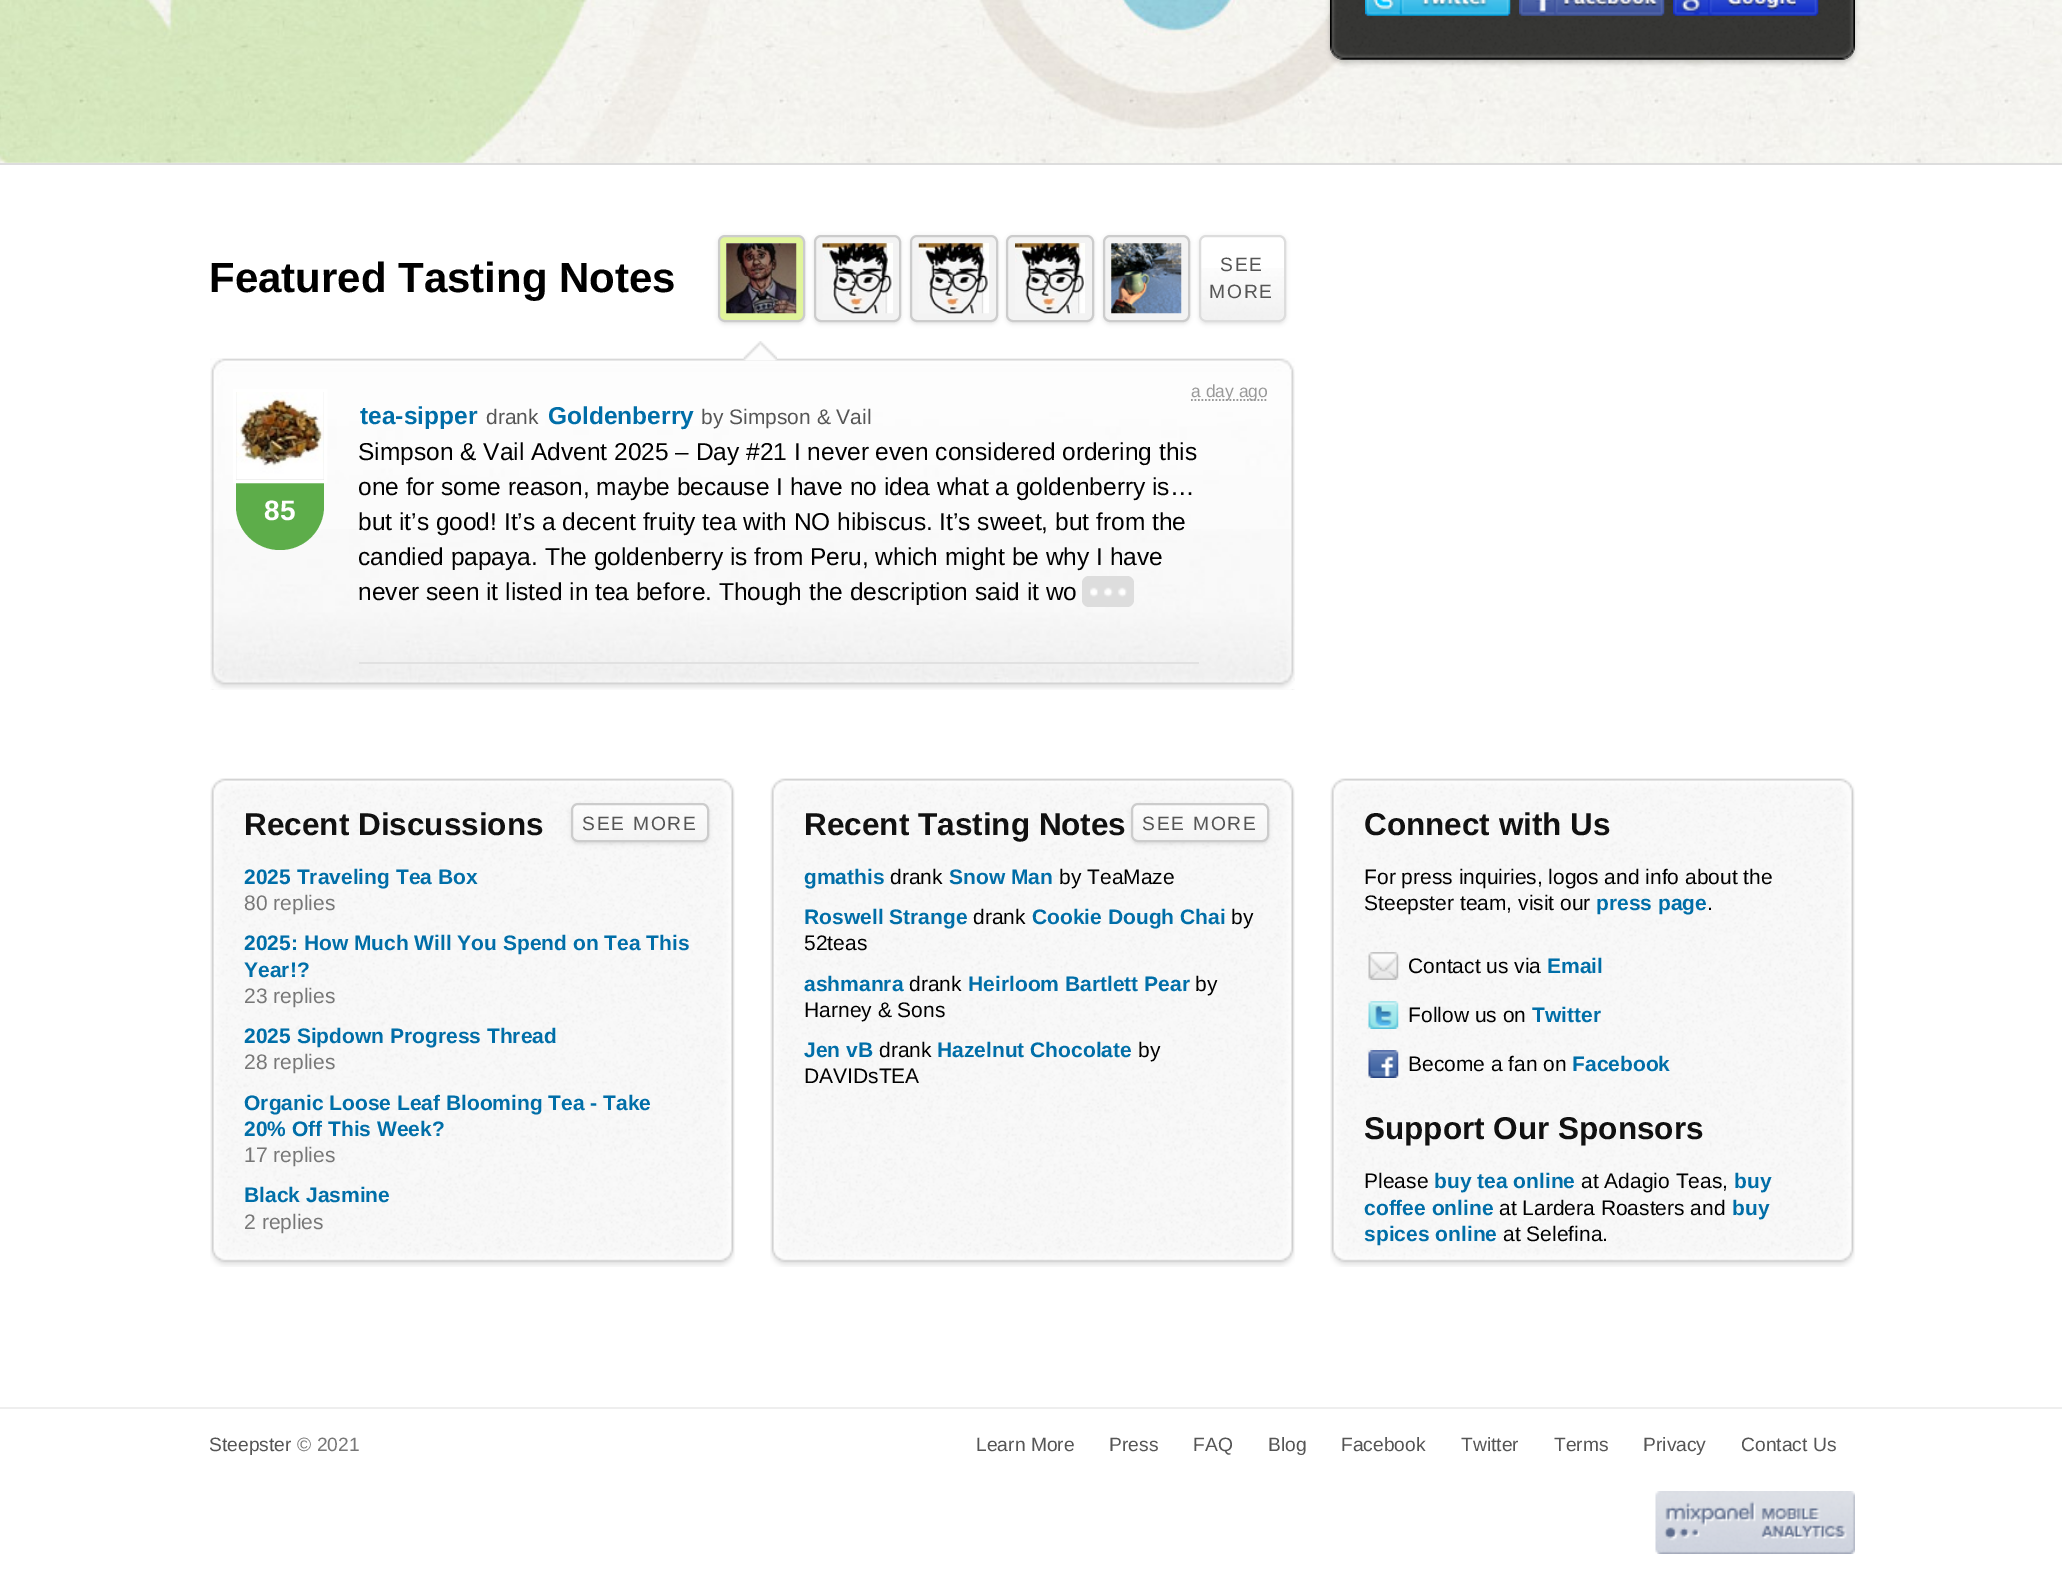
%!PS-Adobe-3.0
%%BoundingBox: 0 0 2062 1571
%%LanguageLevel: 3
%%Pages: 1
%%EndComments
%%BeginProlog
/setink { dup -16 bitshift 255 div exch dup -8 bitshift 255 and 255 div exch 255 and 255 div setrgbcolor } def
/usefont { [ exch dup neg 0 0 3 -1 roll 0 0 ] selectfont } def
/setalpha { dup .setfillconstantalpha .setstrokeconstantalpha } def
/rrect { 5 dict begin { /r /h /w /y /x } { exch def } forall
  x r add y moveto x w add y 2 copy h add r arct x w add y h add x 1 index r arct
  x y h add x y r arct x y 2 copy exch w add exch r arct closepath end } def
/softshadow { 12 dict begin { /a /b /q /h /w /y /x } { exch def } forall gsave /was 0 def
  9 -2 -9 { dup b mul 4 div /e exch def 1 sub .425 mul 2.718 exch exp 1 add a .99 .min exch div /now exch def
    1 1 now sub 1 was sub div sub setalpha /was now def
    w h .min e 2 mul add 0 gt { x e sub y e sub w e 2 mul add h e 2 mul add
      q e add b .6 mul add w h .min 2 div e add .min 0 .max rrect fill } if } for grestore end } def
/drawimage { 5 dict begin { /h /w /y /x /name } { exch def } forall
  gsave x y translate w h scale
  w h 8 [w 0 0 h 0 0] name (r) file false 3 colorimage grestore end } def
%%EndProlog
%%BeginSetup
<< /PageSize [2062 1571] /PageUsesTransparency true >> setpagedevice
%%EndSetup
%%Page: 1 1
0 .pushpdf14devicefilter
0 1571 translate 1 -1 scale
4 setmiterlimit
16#FFFFFF setink
0 0 2062 1571 rectfill
(img1.raw) 0 162 2062 1 drawimage
(img2.raw) 0 0 2062 163 drawimage
16#DDDDDD setink
0 163 2062 2 rectfill
16#000000 setink
1330 -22 525 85 14 2.5 0.2 softshadow
(img3.raw) 1330 46 525 14 drawimage
16#444444 setink
1330 -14 moveto 1855 -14 lineto 1855 46 lineto 1855 53.5 1848.5 60 1841 60 curveto 1344 60 lineto 1336.5 60 1330 53.5 1330 46 curveto closepath fill
(img4.raw) 1330 0 525 60 drawimage
(img5.raw) 1365 0 146 16 drawimage
(img6.raw) 1519 0 146 16 drawimage
(img7.raw) 1673 0 146 16 drawimage
/LiberationSans-Bold 42 usefont
16#000000 setink
209 292 moveto (Featured Tasting Notes) show
(img15.raw) 210 358 1085 332 drawimage
(img8.raw) 743 341 34 20 drawimage
718 236 87 88 7 2 0.1 softshadow
16#E1F59A setink
719 236 85 85 6 rrect gsave fill grestore
16#CCCCCC setink
2 setlinewidth
stroke
16#FFFFFF setink
726 243 70 70 rectfill
(img9.raw) 726 243 71 71 drawimage
16#000000 setink
814 236 87 88 7 2 0.1 softshadow
16#F3F3F3 setink
815 236 85 85 6 rrect gsave fill grestore
16#CCCCCC setink
stroke
16#FFFFFF setink
823 243 70 70 rectfill
(img10.raw) 822 243 71 71 drawimage
16#000000 setink
910 236 88 88 7 2 0.1 softshadow
16#F3F3F3 setink
911 236 86 85 6 rrect gsave fill grestore
16#CCCCCC setink
stroke
16#FFFFFF setink
919 243 70 70 rectfill
(img11.raw) 918 243 71 71 drawimage
16#000000 setink
1006 236 88 88 7 2 0.1 softshadow
16#F3F3F3 setink
1007 236 86 85 6 rrect gsave fill grestore
16#CCCCCC setink
stroke
(img12.raw) 1015 243 70 71 drawimage
16#000000 setink
1103 236 87 88 7 2 0.1 softshadow
16#F3F3F3 setink
1104 236 85 85 6 rrect gsave fill grestore
16#CCCCCC setink
stroke
16#FFFFFF setink
1111 243 70 70 rectfill
(img13.raw) 1111 243 71 71 drawimage
16#000000 setink
1199 236 87 88 7 2 0.1 softshadow
16#FFFFFF setink
1199 235 87 87 7 rrect fill
(img14.raw) 1199 268 87 53 drawimage
16#DDDDDD setink
1200 236 85 85 6 rrect stroke
/LiberationSans-Regular 19.25 usefont
16#555555 setink
1220 271 moveto 1.75 0 (SEE) ashow
1209 298 moveto 1.75 0 (MORE) ashow
(img16.raw) 210 529 1085 161 drawimage
16#999999 setink
1.8 setlinewidth
[1.75 1.75] 0 setdash
1191 400 moveto 1268 400 lineto stroke
/LiberationSans-Regular 17.5 usefont
1191 397 moveto (a day ago) show
/LiberationSans-Bold 24.5 usefont
16#006EA8 setink
360 424 moveto (tea-sipper) show
/LiberationSans-Regular 21 usefont
16#555555 setink
486 424 moveto (drank) show
/LiberationSans-Bold 24.5 usefont
16#006EA8 setink
548 424 moveto (Goldenberry) show
/LiberationSans-Regular 21 usefont
16#555555 setink
701 424 moveto (by Simpson & Vail) show
16#5DAD4A setink
236 453 moveto 324 453 lineto 324 506 lineto 324 530.5 304.5 550 280 550 curveto 255.5 550 236 530.5 236 506 curveto closepath fill
16#FFFFFF setink
4 setlinewidth
[] 0 setdash
235 391 90 90 rectstroke
16#E1E1E1 setink
236 392 88 88 rectfill
(img17.raw) 236 392 88 88 drawimage
/LiberationSans-Bold 28 usefont
16#FFFFFF setink
264 520 moveto (85) show
16#E1E1E1 setink
359 662 840 2 rectfill
/LiberationSans-Regular 24.5 usefont
16#000000 setink
[
    [(Simpson & Vail Advent 2025 – Day #21 I never even considered ordering this) 358 460]
    [(one for some reason, maybe because I have no idea what a goldenberry is…) 358 495]
    [(but it’s good! It’s a decent fruity tea with NO hibiscus. It’s sweet, but from the) 358 530]
    [(candied papaya. The goldenberry is from Peru, which might be why I have) 358 565]
    [(never seen it listed in tea before. Though the description said it wo) 358 600]
] { aload pop moveto show } forall
16#DDDDDD setink
1082 576 52 31 7 rrect fill
(img18.raw) 1090 587 37 10 drawimage
(img19.raw) 210 778 525 34 drawimage
(img20.raw) 210 812 525 455 drawimage
/LiberationSans-Bold 31.5 usefont
16#111111 setink
244 835 moveto (Recent Discussions) show
16#000000 setink
571 805 138 39 7 2 0.1 softshadow
(img21.raw) 571 803 138 38 drawimage
16#CCCCCC setink
2 setlinewidth
572 804 136 37 6 rrect stroke
/LiberationSans-Regular 19.25 usefont
16#555555 setink
582 830 moveto 1.75 0 (SEE MORE) ashow
/LiberationSans-Bold 21 usefont
16#006EA8 setink
244 884 moveto (2025 Traveling Tea Box) show
/LiberationSans-Regular 21 usefont
16#777777 setink
244 910 moveto (80 replies) show
/LiberationSans-Bold 21 usefont
16#006EA8 setink
244 950 moveto (2025: How Much Will You Spend on Tea This) show
244 977 moveto (Year!?) show
/LiberationSans-Regular 21 usefont
16#777777 setink
244 1003 moveto (23 replies) show
/LiberationSans-Bold 21 usefont
16#006EA8 setink
244 1043 moveto (2025 Sipdown Progress Thread) show
/LiberationSans-Regular 21 usefont
16#777777 setink
244 1069 moveto (28 replies) show
/LiberationSans-Bold 21 usefont
16#006EA8 setink
244 1110 moveto (Organic Loose Leaf Blooming Tea - Take) show
244 1136 moveto (20% Off This Week?) show
/LiberationSans-Regular 21 usefont
16#777777 setink
244 1162 moveto (17 replies) show
/LiberationSans-Bold 21 usefont
16#006EA8 setink
244 1202 moveto (Black Jasmine) show
/LiberationSans-Regular 21 usefont
16#777777 setink
244 1229 moveto (2 replies) show
(img22.raw) 770 778 525 34 drawimage
(img23.raw) 770 812 525 455 drawimage
/LiberationSans-Bold 31.5 usefont
16#111111 setink
804 835 moveto (Recent Tasting Notes) show
16#000000 setink
1131 805 138 39 7 2 0.1 softshadow
(img21.raw) 1131 803 138 38 drawimage
16#CCCCCC setink
1132 804 136 37 6 rrect stroke
/LiberationSans-Regular 19.25 usefont
16#555555 setink
1142 830 moveto 1.75 0 (SEE MORE) ashow
/LiberationSans-Bold 21 usefont
16#006EA8 setink
804 884 moveto (gmathis) show
/LiberationSans-Regular 21 usefont
16#000000 setink
890 884 moveto (drank) show
/LiberationSans-Bold 21 usefont
16#006EA8 setink
949 884 moveto (Snow Man) show
/LiberationSans-Regular 21 usefont
16#000000 setink
1059 884 moveto (by TeaMaze) show
/LiberationSans-Bold 21 usefont
16#006EA8 setink
804 924 moveto (Roswell Strange) show
/LiberationSans-Regular 21 usefont
16#000000 setink
973 924 moveto (drank) show
/LiberationSans-Bold 21 usefont
16#006EA8 setink
1032 924 moveto (Cookie Dough Chai) show
/LiberationSans-Regular 21 usefont
16#000000 setink
1231 924 moveto (by) show
804 950 moveto (52teas) show
/LiberationSans-Bold 21 usefont
16#006EA8 setink
804 991 moveto (ashmanra) show
/LiberationSans-Regular 21 usefont
16#000000 setink
909 991 moveto (drank) show
/LiberationSans-Bold 21 usefont
16#006EA8 setink
968 991 moveto (Heirloom Bartlett Pear) show
/LiberationSans-Regular 21 usefont
16#000000 setink
1195 991 moveto (by) show
804 1017 moveto (Harney & Sons) show
/LiberationSans-Bold 21 usefont
16#006EA8 setink
804 1057 moveto (Jen vB) show
/LiberationSans-Regular 21 usefont
16#000000 setink
879 1057 moveto (drank) show
/LiberationSans-Bold 21 usefont
16#006EA8 setink
937 1057 moveto (Hazelnut Chocolate) show
/LiberationSans-Regular 21 usefont
16#000000 setink
1138 1057 moveto (by) show
804 1083 moveto (DAVIDsTEA) show
(img24.raw) 1330 778 525 34 drawimage
(img25.raw) 1330 812 525 455 drawimage
/LiberationSans-Bold 31.5 usefont
16#111111 setink
1364 835 moveto (Connect with Us) show
/LiberationSans-Regular 21 usefont
16#000000 setink
1364 884 moveto (For press inquiries, logos and info about the) show
1364 910 moveto (Steepster team, visit our) show
/LiberationSans-Bold 21 usefont
16#006EA8 setink
1596 910 moveto (press page) show
/LiberationSans-Regular 21 usefont
16#000000 setink
1707 910 moveto (.) show
(img26.raw) 1368 952 31 28 drawimage
1408 973 moveto (Contact us via) show
/LiberationSans-Bold 21 usefont
16#006EA8 setink
1547 973 moveto (Email) show
(img27.raw) 1368 1001 31 28 drawimage
/LiberationSans-Regular 21 usefont
16#000000 setink
1408 1022 moveto (Follow us on) show
/LiberationSans-Bold 21 usefont
16#006EA8 setink
1532 1022 moveto (Twitter) show
(img28.raw) 1368 1050 31 28 drawimage
/LiberationSans-Regular 21 usefont
16#000000 setink
1408 1071 moveto (Become a fan on) show
/LiberationSans-Bold 21 usefont
16#006EA8 setink
1572 1071 moveto (Facebook) show
/LiberationSans-Bold 31.5 usefont
16#111111 setink
1364 1139 moveto (Support Our Sponsors) show
/LiberationSans-Regular 21 usefont
16#000000 setink
1364 1188 moveto (Please) show
/LiberationSans-Bold 21 usefont
16#006EA8 setink
1434 1188 moveto (buy tea online) show
/LiberationSans-Regular 21 usefont
16#000000 setink
1581 1188 moveto (at Adagio Teas,) show
/LiberationSans-Bold 21 usefont
16#006EA8 setink
1734 1188 moveto (buy) show
1364 1215 moveto (coffee online) show
/LiberationSans-Regular 21 usefont
16#000000 setink
1499 1215 moveto (at Lardera Roasters and) show
/LiberationSans-Bold 21 usefont
16#006EA8 setink
1732 1215 moveto (buy) show
1364 1241 moveto (spices online) show
/LiberationSans-Regular 21 usefont
16#000000 setink
1503 1241 moveto (at Selefina.) show
16#EEEEEE setink
0 1407 2062 2 rectfill
/LiberationSans-Regular 19.25 usefont
16#555555 setink
209 1451 moveto (Steepster) show
16#777777 setink
297 1451 moveto (© 2021) show
16#555555 setink
[
    [(Learn More) 976 1451]
    [(Press) 1109 1451]
    [(FAQ) 1193 1451]
    [(Blog) 1268 1451]
    [(Facebook) 1341 1451]
    [(Twitter) 1461 1451]
    [(Terms) 1554 1451]
    [(Privacy) 1643 1451]
    [(Contact Us) 1741 1451]
] { aload pop moveto show } forall
(img29.raw) 1655 1491 200 63 drawimage
.poppdf14devicefilter showpage
%%EOF
